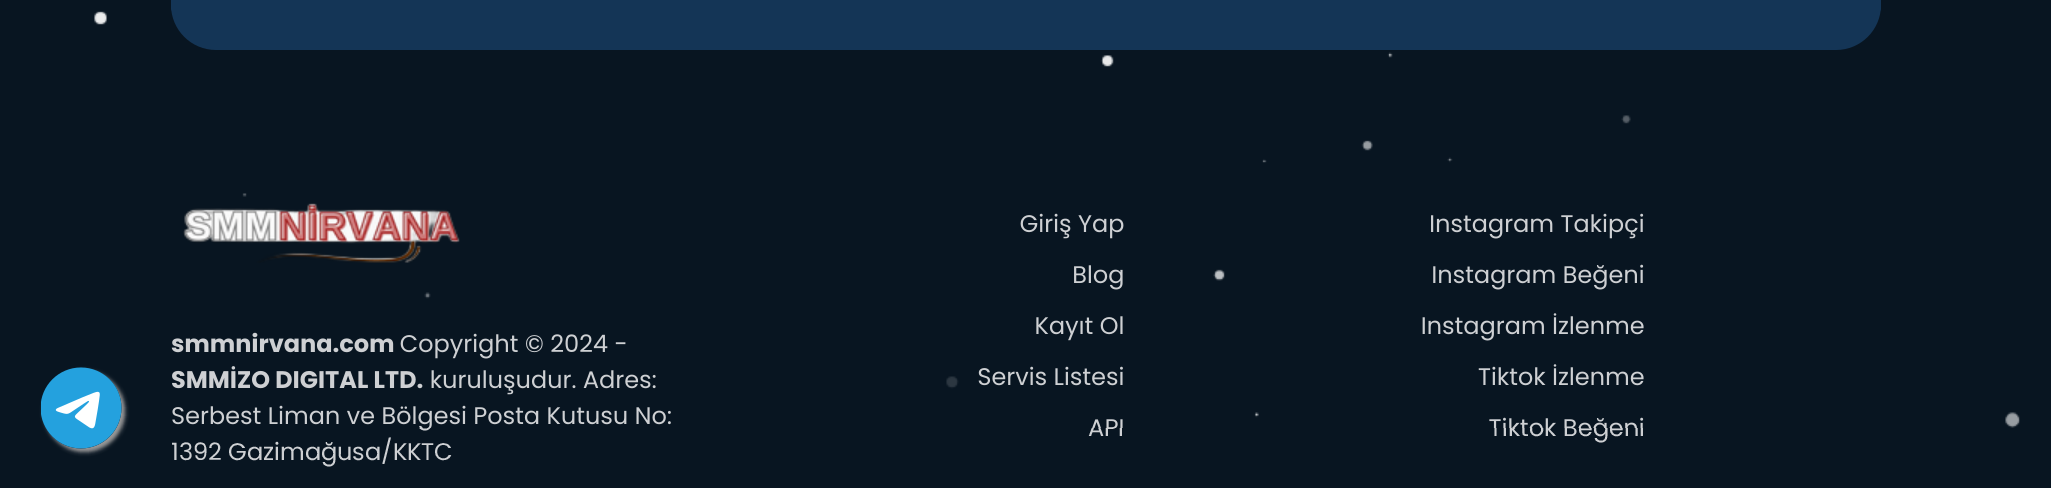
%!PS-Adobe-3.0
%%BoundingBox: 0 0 2051 488
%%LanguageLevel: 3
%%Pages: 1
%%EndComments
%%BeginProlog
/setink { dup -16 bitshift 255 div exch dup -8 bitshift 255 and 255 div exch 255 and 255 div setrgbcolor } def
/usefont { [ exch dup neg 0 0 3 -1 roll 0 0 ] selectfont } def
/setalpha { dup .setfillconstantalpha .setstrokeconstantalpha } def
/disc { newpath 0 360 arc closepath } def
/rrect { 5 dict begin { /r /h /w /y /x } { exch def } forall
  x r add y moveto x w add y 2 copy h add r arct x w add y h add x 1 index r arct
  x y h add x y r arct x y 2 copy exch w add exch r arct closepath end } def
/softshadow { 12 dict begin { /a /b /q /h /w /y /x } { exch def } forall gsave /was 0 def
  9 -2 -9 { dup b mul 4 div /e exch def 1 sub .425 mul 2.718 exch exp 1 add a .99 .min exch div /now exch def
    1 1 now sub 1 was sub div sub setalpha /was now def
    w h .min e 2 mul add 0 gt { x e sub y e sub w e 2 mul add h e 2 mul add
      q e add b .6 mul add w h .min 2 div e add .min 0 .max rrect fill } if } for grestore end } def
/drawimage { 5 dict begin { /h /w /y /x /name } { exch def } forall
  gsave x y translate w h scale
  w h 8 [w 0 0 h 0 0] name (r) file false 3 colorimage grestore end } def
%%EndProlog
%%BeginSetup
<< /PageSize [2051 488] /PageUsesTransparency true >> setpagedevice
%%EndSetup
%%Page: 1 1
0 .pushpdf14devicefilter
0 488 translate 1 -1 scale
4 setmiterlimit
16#081521 setink
0 0 2051 488 rectfill
16#143556 setink
171 -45 1710 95 45 rrect fill
(img3.raw) 183 203 277 60 drawimage
/Poppins-Bold 24 usefont
16#CED0D3 setink
171 352 moveto (smmnirvana.com) show
/Poppins-Regular 24 usefont
400 352 moveto (Copyright © 2024 -) show
/Poppins-Bold 24 usefont
171 388 moveto (SMMİZO DIGITAL LTD.) show
/Poppins-Regular 24 usefont
[
    [(kuruluşudur. Adres:) 430 388]
    [(Serbest Liman ve Bölgesi Posta Kutusu No:) 171 424]
    [(Giriş Yap) 1020 232]
    [(Blog) 1072 283]
    [(Kayıt Ol) 1035 334]
    [(Servis Listesi) 977 385]
    [(API) 1088 436]
    [(Instagram Takipçi) 1429 232]
    [(Instagram Beğeni) 1431 283]
    [(Instagram İzlenme) 1421 334]
    [(Tiktok İzlenme) 1478 385]
    [(Tiktok Beğeni) 1489 436]
] { aload pop moveto show } forall
(img1.raw) 94 11 1926 417 drawimage
16#999999 setink
44 371 81 81 40.5 2 1 softshadow
16#FFFFFF setink
81.5 408.5 28.5 disc fill
(img2.raw) 41 367 81 82 drawimage
16#CED0D3 setink
171 460 moveto (1392 Gazimağusa/KKTC) show
.poppdf14devicefilter showpage
%%EOF
